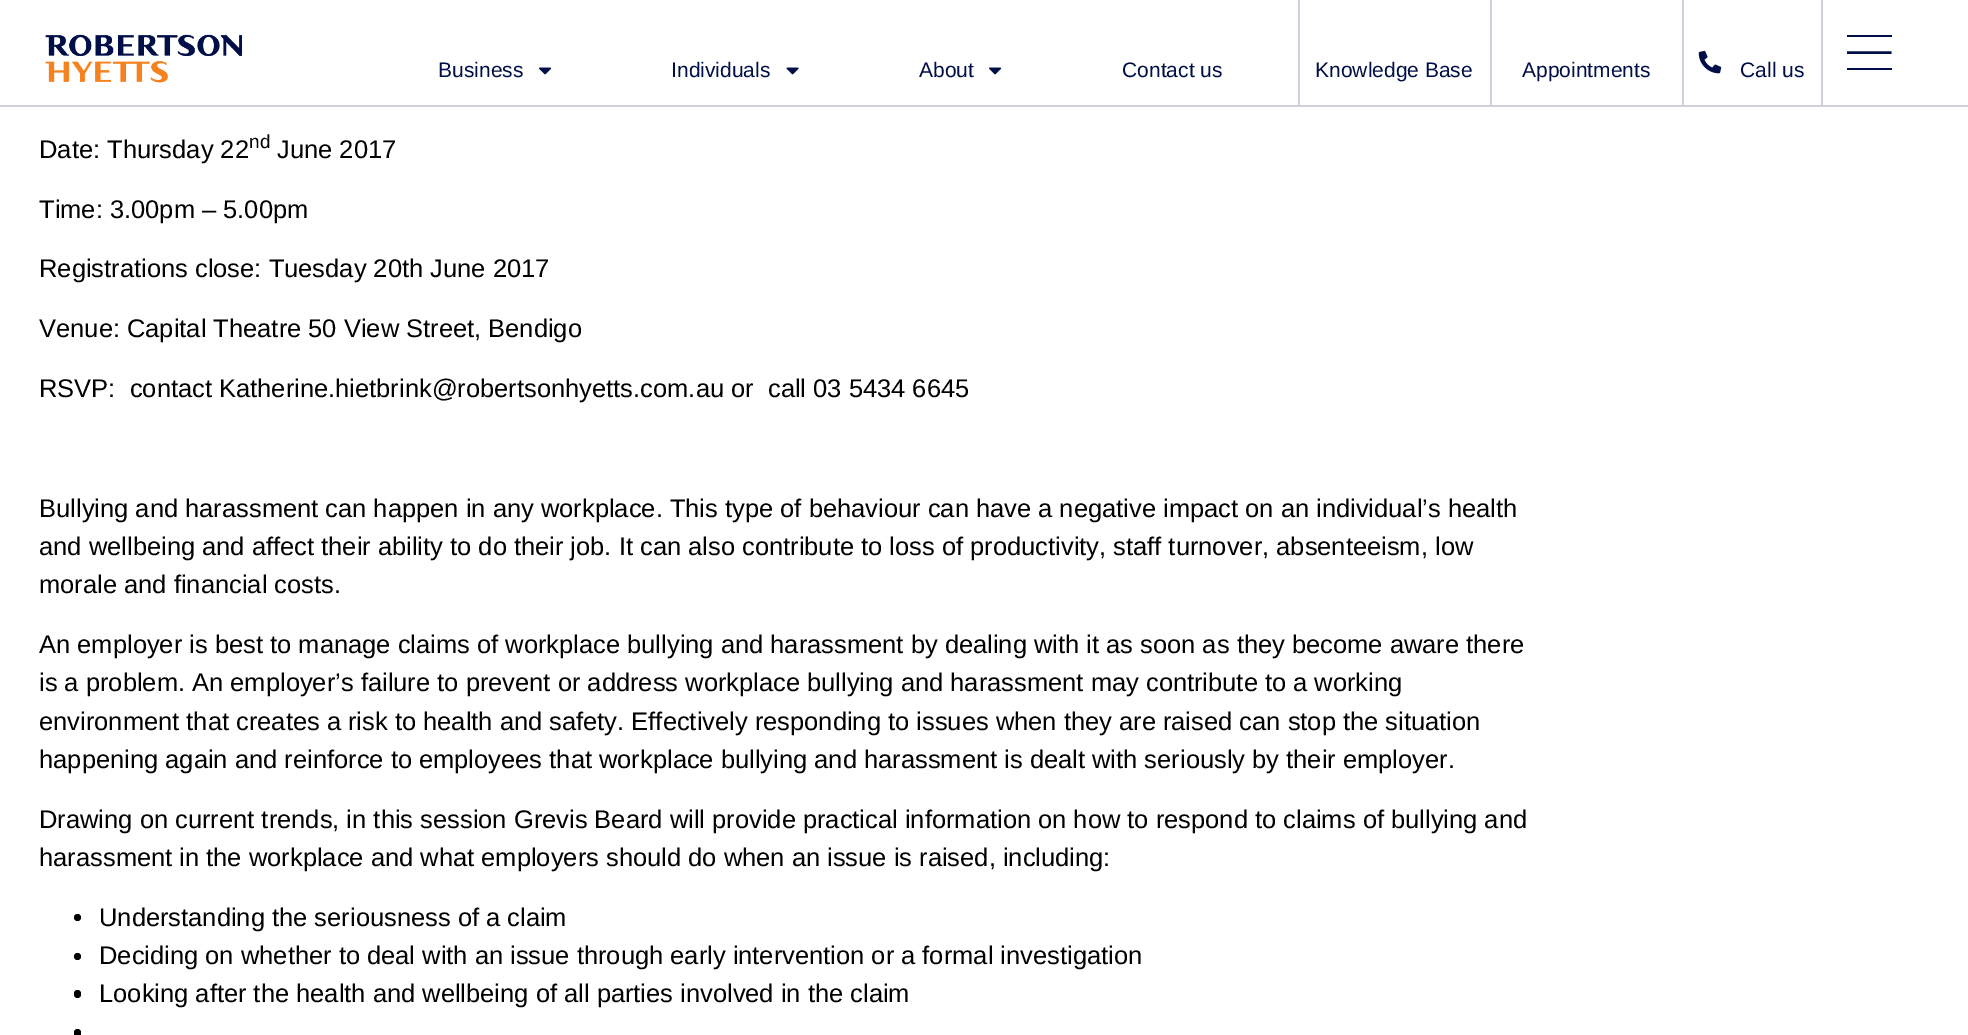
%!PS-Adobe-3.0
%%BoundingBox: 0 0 1968 1035
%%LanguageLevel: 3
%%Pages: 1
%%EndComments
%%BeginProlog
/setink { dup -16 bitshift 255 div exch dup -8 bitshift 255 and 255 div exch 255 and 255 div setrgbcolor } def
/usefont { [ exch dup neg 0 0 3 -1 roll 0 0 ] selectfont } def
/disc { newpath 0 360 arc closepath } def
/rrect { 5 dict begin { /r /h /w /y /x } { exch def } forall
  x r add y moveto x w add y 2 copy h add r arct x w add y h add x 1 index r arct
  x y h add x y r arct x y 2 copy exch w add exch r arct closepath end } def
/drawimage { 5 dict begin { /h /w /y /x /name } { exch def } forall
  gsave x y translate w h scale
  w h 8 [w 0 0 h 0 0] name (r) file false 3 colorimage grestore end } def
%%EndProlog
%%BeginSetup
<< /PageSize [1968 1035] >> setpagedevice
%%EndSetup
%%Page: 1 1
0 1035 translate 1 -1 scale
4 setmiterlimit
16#FFFFFF setink
0 0 1968 1035 rectfill
16#CFD1DC setink
0 105 1968 2 rectfill
(img1.raw) 45 34 197 49 drawimage
/LiberationSans-Regular 21 usefont
16#000F47 setink
438 77 moveto (Business) show
(img2.raw) 539 67 13 8 drawimage
671 77 moveto (Individuals) show
(img3.raw) 786 67 13 8 drawimage
919 77 moveto (About) show
(img2.raw) 989 67 13 8 drawimage
1122 77 moveto (Contact us) show
16#CFD1DC setink
1298 0 2 105 rectfill
16#000F47 setink
1315 77 moveto (Knowledge Base) show
16#CFD1DC setink
1490 0 2 105 rectfill
16#000F47 setink
1522 77 moveto (Appointments) show
16#CFD1DC setink
1682 0 2 105 rectfill
(img4.raw) 1698 50 24 24 drawimage
16#000F47 setink
1740 77 moveto (Call us) show
16#CFD1DC setink
1821 0 2 105 rectfill
16#000F47 setink
1847 35 45 2 rectfill
gsave
1847 30 45 45 rectclip
2.4 setlinewidth
1846.5 52.5 moveto 1891.5 52.5 lineto stroke
grestore
1847 68 45 2 rectfill
/LiberationSans-Regular 25.5 usefont
16#000000 setink
39 158 moveto (Date: Thursday 22) show
/LiberationSans-Regular 19 usefont
249 148 moveto (nd) show
/LiberationSans-Regular 25.5 usefont
[
    [(June 2017) 277 158]
    [(Time: 3.00pm – 5.00pm) 39 218]
    [(Registrations close: Tuesday 20th June 2017) 39 277]
    [(Venue: Capital Theatre 50 View Street, Bendigo) 39 337]
    [(RSVP:  contact Katherine.hietbrink@robertsonhyetts.com.au or  call 03 5434 6645) 39 397]
    [(Bullying and harassment can happen in any workplace. This type of behaviour can have a negative impact on an individual’s health) 39 517]
    [(and wellbeing and affect their ability to do their job. It can also contribute to loss of productivity, staff turnover, absenteeism, low) 39 555]
    [(morale and financial costs.) 39 593]
    [(An employer is best to manage claims of workplace bullying and harassment by dealing with it as soon as they become aware there) 39 653]
    [(is a problem. An employer’s failure to prevent or address workplace bullying and harassment may contribute to a working) 39 691]
    [(environment that creates a risk to health and safety. Effectively responding to issues when they are raised can stop the situation) 39 730]
    [(happening again and reinforce to employees that workplace bullying and harassment is dealt with seriously by their employer.) 39 768]
    [(Drawing on current trends, in this session Grevis Beard will provide practical information on how to respond to claims of bullying and) 39 828]
    [(harassment in the workplace and what employers should do when an issue is raised, including:) 39 866]
] { aload pop moveto show } forall
77.5 917.5 3.5 disc fill
99 926 moveto (Understanding the seriousness of a claim) show
77.5 956.5 3.5 disc fill
99 964 moveto (Deciding on whether to deal with an issue through early intervention or a formal investigation) show
74 990 7 8 3.5 rrect fill
99 1002 moveto (Looking after the health and wellbeing of all parties involved in the claim) show
74 1029 7 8 3.5 rrect fill
showpage
%%EOF
